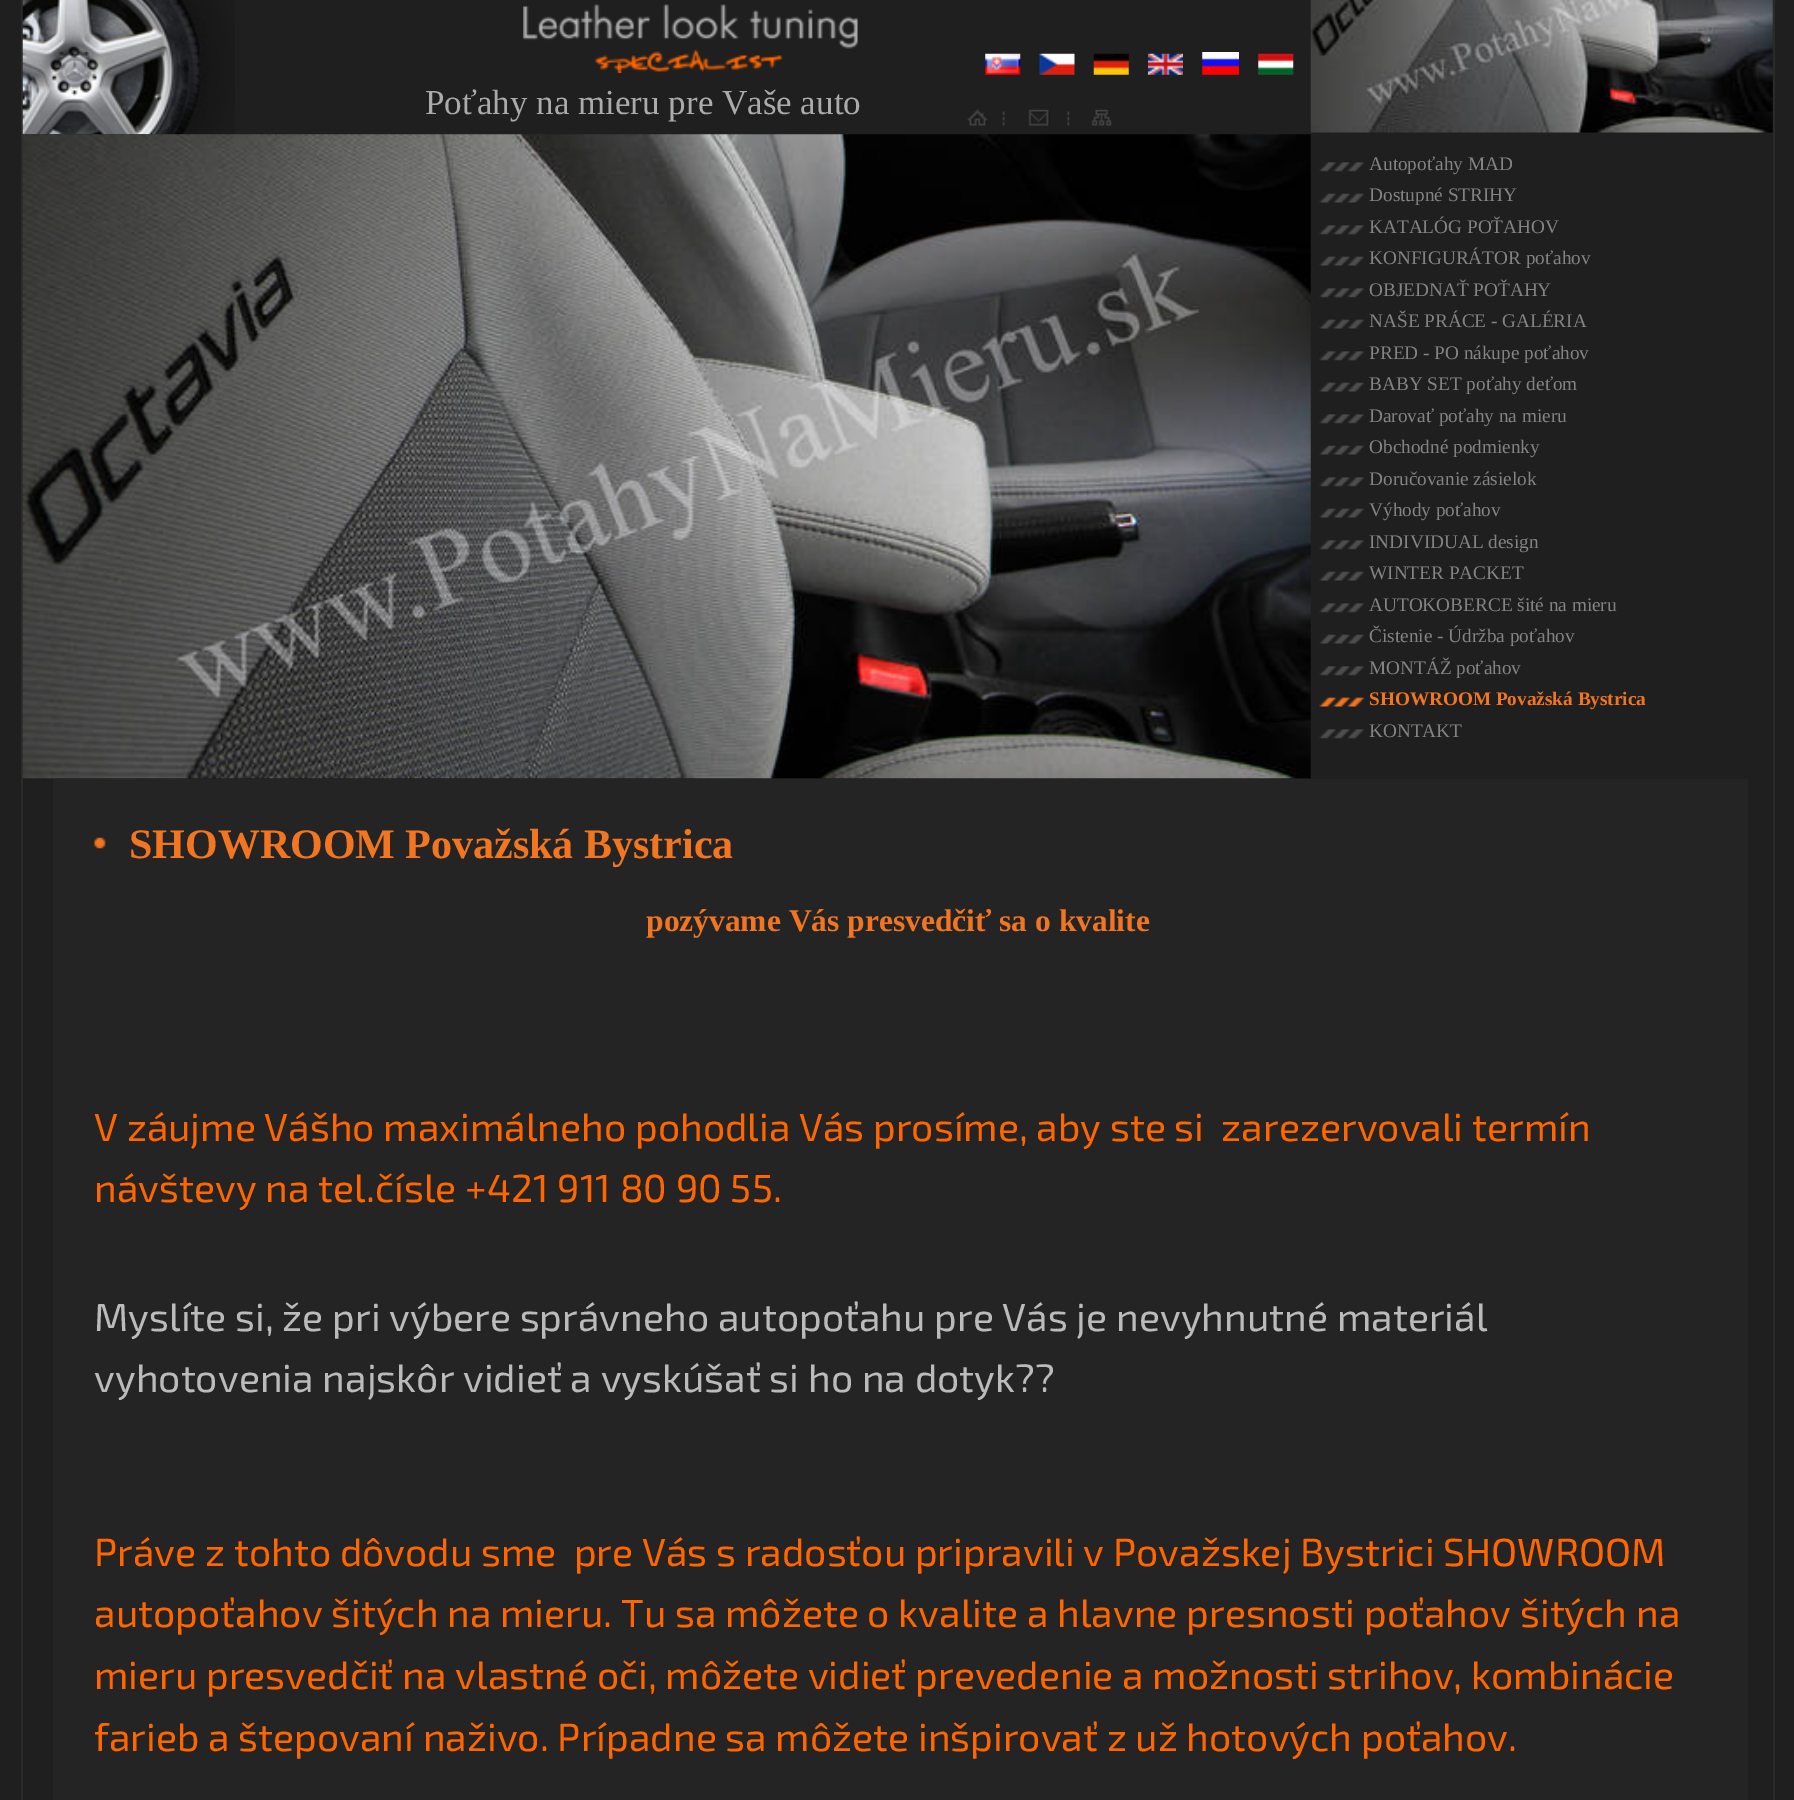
%!PS-Adobe-3.0
%%BoundingBox: 0 0 1794 1800
%%LanguageLevel: 3
%%Pages: 1
%%EndComments
%%BeginProlog
/setink { dup -16 bitshift 255 div exch dup -8 bitshift 255 and 255 div exch 255 and 255 div setrgbcolor } def
/usefont { [ exch dup neg 0 0 3 -1 roll 0 0 ] selectfont } def
/drawimage { 5 dict begin { /h /w /y /x /name } { exch def } forall
  gsave x y translate w h scale
  w h 8 [w 0 0 h 0 0] name (r) file false 3 colorimage grestore end } def
%%EndProlog
%%BeginSetup
<< /PageSize [1794 1800] >> setpagedevice
%%EndSetup
%%Page: 1 1
0 1800 translate 1 -1 scale
4 setmiterlimit
16#1F1F1F setink
0 0 1794 1800 rectfill
16#2A2A2A setink
1773 0 2 1800 rectfill
21 0 2 1800 rectfill
(img1.raw) 22 0 213 135 drawimage
(img2.raw) 523 4 336 69 drawimage
(img3.raw) 1310 0 463 133 drawimage
/LiberationSerif-Regular 35 usefont
16#ABABAB setink
425 114 moveto (Poťahy na mieru pre Vaše auto) show
(img4.raw) 985 53 36 22 drawimage
(img5.raw) 1039 53 36 22 drawimage
(img6.raw) 1093 53 36 22 drawimage
(img7.raw) 1148 53 35 22 drawimage
(img8.raw) 1202 52 37 23 drawimage
(img9.raw) 1258 53 36 22 drawimage
(img10.raw) 967 109 38 17 drawimage
(img11.raw) 1028 109 42 17 drawimage
(img12.raw) 1091 109 21 17 drawimage
(img13.raw) 22 134 1289 645 drawimage
(img14.raw) 1319 162 45 10 drawimage
/LiberationSerif-Regular 19.25 usefont
16#848484 setink
1369 170 moveto (Autopoťahy MAD) show
(img15.raw) 1319 193 45 10 drawimage
1369 201 moveto (Dostupné STRIHY) show
(img14.raw) 1319 225 45 10 drawimage
1369 233 moveto (KATALÓG POŤAHOV) show
(img15.raw) 1319 256 45 10 drawimage
1369 264 moveto (KONFIGURÁTOR poťahov) show
(img14.raw) 1319 288 45 10 drawimage
1369 296 moveto (OBJEDNAŤ POŤAHY) show
(img15.raw) 1319 319 45 10 drawimage
1369 327 moveto (NAŠE PRÁCE - GALÉRIA) show
(img14.raw) 1319 351 45 10 drawimage
1369 359 moveto (PRED - PO nákupe poťahov) show
(img15.raw) 1319 382 45 10 drawimage
1369 390 moveto (BABY SET poťahy deťom) show
(img14.raw) 1319 414 45 10 drawimage
1369 422 moveto (Darovať poťahy na mieru) show
(img15.raw) 1319 445 45 10 drawimage
1369 453 moveto (Obchodné podmienky) show
(img14.raw) 1319 477 45 10 drawimage
1369 485 moveto (Doručovanie zásielok) show
(img16.raw) 1319 508 45 10 drawimage
1369 516 moveto (Výhody poťahov) show
(img14.raw) 1319 540 45 10 drawimage
1369 548 moveto (INDIVIDUAL design) show
(img15.raw) 1319 571 45 10 drawimage
1369 579 moveto (WINTER PACKET) show
(img14.raw) 1319 603 45 10 drawimage
1369 611 moveto (AUTOKOBERCE šité na mieru) show
(img15.raw) 1319 634 45 10 drawimage
1369 642 moveto (Čistenie - Údržba poťahov) show
(img14.raw) 1319 666 45 10 drawimage
1369 674 moveto (MONTÁŽ poťahov) show
(img17.raw) 1319 697 46 10 drawimage
/LiberationSerif-Bold 19.25 usefont
16#F27521 setink
1369 705 moveto (SHOWROOM Považská Bystrica) show
(img18.raw) 1319 729 45 10 drawimage
/LiberationSerif-Regular 19.25 usefont
16#848484 setink
1369 737 moveto (KONTAKT) show
16#242424 setink
53 779 1695 1021 rectfill
(img19.raw) 94 837 12 12 drawimage
/LiberationSerif-Bold 42 usefont
16#F27521 setink
129 858 moveto (SHOWROOM Považská Bystrica) show
/LiberationSerif-Bold 31.5 usefont
646 931 moveto (pozývame Vás presvedčiť sa o kvalite) show
/Exo2-Regular 39.2 usefont
16#FF6600 setink
94 1141 moveto (V záujme Vášho maximálneho pohodlia Vás prosíme, aby ste si  zarezervovali termín) show
94 1202 moveto (návštevy na tel.čísle +421 911 80 90 55.) show
16#BBBBBB setink
94 1331 moveto (Myslíte si, že pri výbere správneho autopoťahu pre Vás je nevyhnutné materiál) show
94 1392 moveto (vyhotovenia najskôr vidieť a vyskúšať si ho na dotyk??) show
16#FF6600 setink
[
    [(Práve z tohto dôvodu sme  pre Vás s radosťou pripravili v Považskej Bystrici SHOWROOM) 94 1566]
    [(autopoťahov šitých na mieru. Tu sa môžete o kvalite a hlavne presnosti poťahov šitých na) 94 1627]
    [(mieru presvedčiť na vlastné oči, môžete vidieť prevedenie a možnosti strihov, kombinácie) 94 1689]
    [(farieb a štepovaní naživo. Prípadne sa môžete inšpirovať z už hotových poťahov.) 94 1751]
] { aload pop moveto show } forall
showpage
%%EOF
